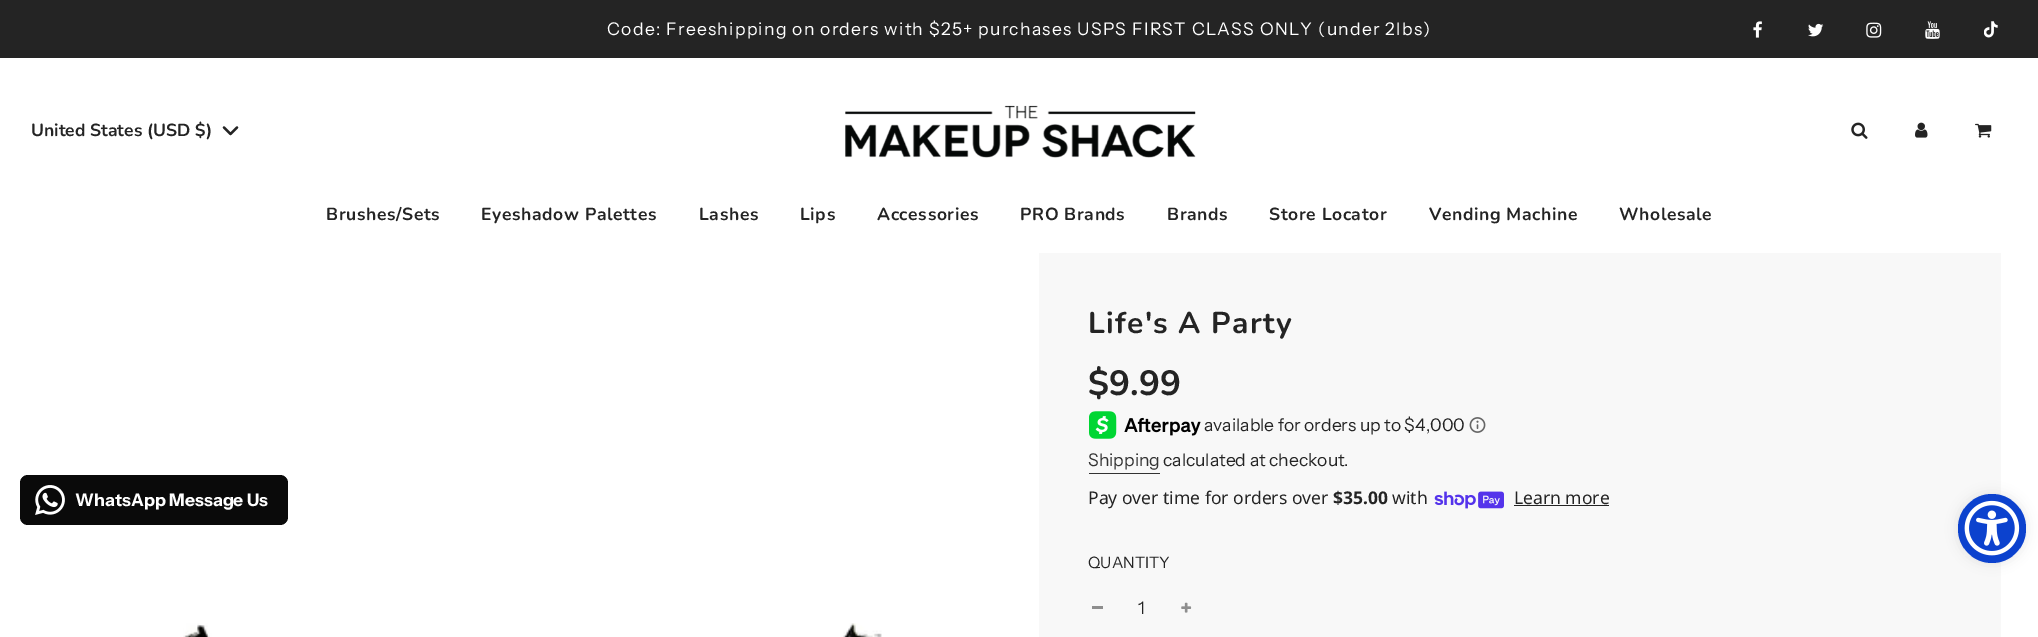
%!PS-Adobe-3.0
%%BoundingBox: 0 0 2038 637
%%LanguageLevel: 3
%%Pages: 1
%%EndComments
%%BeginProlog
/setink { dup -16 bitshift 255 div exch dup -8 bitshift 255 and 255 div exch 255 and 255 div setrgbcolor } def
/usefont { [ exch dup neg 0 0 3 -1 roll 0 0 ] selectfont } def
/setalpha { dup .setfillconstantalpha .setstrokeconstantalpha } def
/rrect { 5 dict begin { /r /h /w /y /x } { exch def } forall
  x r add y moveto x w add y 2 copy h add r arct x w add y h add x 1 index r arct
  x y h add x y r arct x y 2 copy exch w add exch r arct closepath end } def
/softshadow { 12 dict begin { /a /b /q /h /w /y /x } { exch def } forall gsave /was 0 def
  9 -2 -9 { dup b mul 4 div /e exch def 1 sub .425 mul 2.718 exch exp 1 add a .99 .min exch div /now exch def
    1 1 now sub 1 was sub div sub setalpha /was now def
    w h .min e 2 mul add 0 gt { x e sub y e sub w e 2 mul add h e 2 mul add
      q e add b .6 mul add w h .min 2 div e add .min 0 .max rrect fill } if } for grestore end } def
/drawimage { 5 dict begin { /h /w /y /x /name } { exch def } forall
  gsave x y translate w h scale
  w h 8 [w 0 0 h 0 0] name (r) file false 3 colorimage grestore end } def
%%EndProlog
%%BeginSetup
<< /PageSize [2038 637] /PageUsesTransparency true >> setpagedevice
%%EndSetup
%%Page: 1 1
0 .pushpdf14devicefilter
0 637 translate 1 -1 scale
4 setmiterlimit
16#FFFFFF setink
0 0 2038 637 rectfill
16#242424 setink
0 0 2038 58 rectfill
/InstrumentSans-Regular 17.5 usefont
16#FFFFFF setink
607 35 moveto 1.25 0 (Code: Freeshipping on orders with $25+ purchases USPS FIRST CLASS ONLY \(under 2lbs\)) ashow
(img1.raw) 1753 21 9 17 drawimage
(img2.raw) 1808 23 16 14 drawimage
(img3.raw) 1866 22 16 16 drawimage
(img4.raw) 1925 21 15 18 drawimage
(img5.raw) 1984 21 14 17 drawimage
/Nunito-Bold 17.5 usefont
16#242424 setink
31 136 moveto (United States \(USD $\)) show
2.2 setlinewidth
1 setlinecap
1 setlinejoin
224 127.5 moveto 230.5 134 lineto 237 127.5 lineto stroke
(img6.raw) 845 105 351 53 drawimage
(img7.raw) 1851 122 17 17 drawimage
(img8.raw) 1915 122 13 16 drawimage
(img9.raw) 1975 123 17 15 drawimage
326 220 moveto 0.6 0 (Brushes/Sets) ashow
481 220 moveto 0.6 0 (Eyeshadow Palettes) ashow
699 220 moveto 0.6 0 (Lashes) ashow
800 220 moveto 0.6 0 (Lips) ashow
877 220 moveto 0.6 0 (Accessories) ashow
1020 220 moveto 0.6 0 (PRO Brands) ashow
1167 220 moveto 0.6 0 (Brands) ashow
1269 220 moveto 0.6 0 (Store Locator) ashow
1429 220 moveto 0.6 0 (Vending Machine) ashow
1619 220 moveto 0.6 0 (Wholesale) ashow
16#F8F8F8 setink
1039 253 962 384 rectfill
/Nunito-Bold 30 usefont
16#242424 setink
1088 333 moveto 1.25 0 (Life's A Party) ashow
/Nunito-Bold 35 usefont
1088 395 moveto ($9.99) show
(img10.raw) 1089 411 112 28 drawimage
/InstrumentSans-Regular 17.5 usefont
1204 431 moveto (available for orders up to $4,000) show
(img11.raw) 1469 417 17 16 drawimage
16#333333 setink
1088 466 moveto (Shipping) show
1089 473 71 1 rectfill
16#242424 setink
1163 466 moveto (calculated at checkout.) show
/NotoSans-Regular 17.5 usefont
1088 504 moveto (Pay over time for orders over) show
/NotoSans-Bold 17.5 usefont
1333 504 moveto ($35.00) show
/NotoSans-Regular 17.5 usefont
1392 504 moveto (with) show
(img12.raw) 1434 491 70 18 drawimage
1514 504 moveto (Learn more) show
1514 505 95 1 rectfill
/InstrumentSans-Regular 15.75 usefont
1088 568 moveto (QUANTITY) show
16#8E8E8E setink
1092 606 11 3 rectfill
/InstrumentSans-Regular 17.5 usefont
16#242424 setink
1138 614 moveto (1) show
(img13.raw) 1181 602 11 11 drawimage
(img14.raw) 183 623 699 14 drawimage
16#000000 setink
1958 494 68 69 34 6 0.1 softshadow
16#0C42CE setink
1958 494 68 69 34 rrect fill
(img15.raw) 1964 500 56 56 drawimage
16#0A0A0A setink
20 475 268 50 8 rrect fill
(img16.raw) 35 485 30 30 drawimage
/InstrumentSans-Bold 17.5 usefont
16#FFFFFF setink
75 506 moveto (WhatsApp Message Us) show
.poppdf14devicefilter showpage
%%EOF
